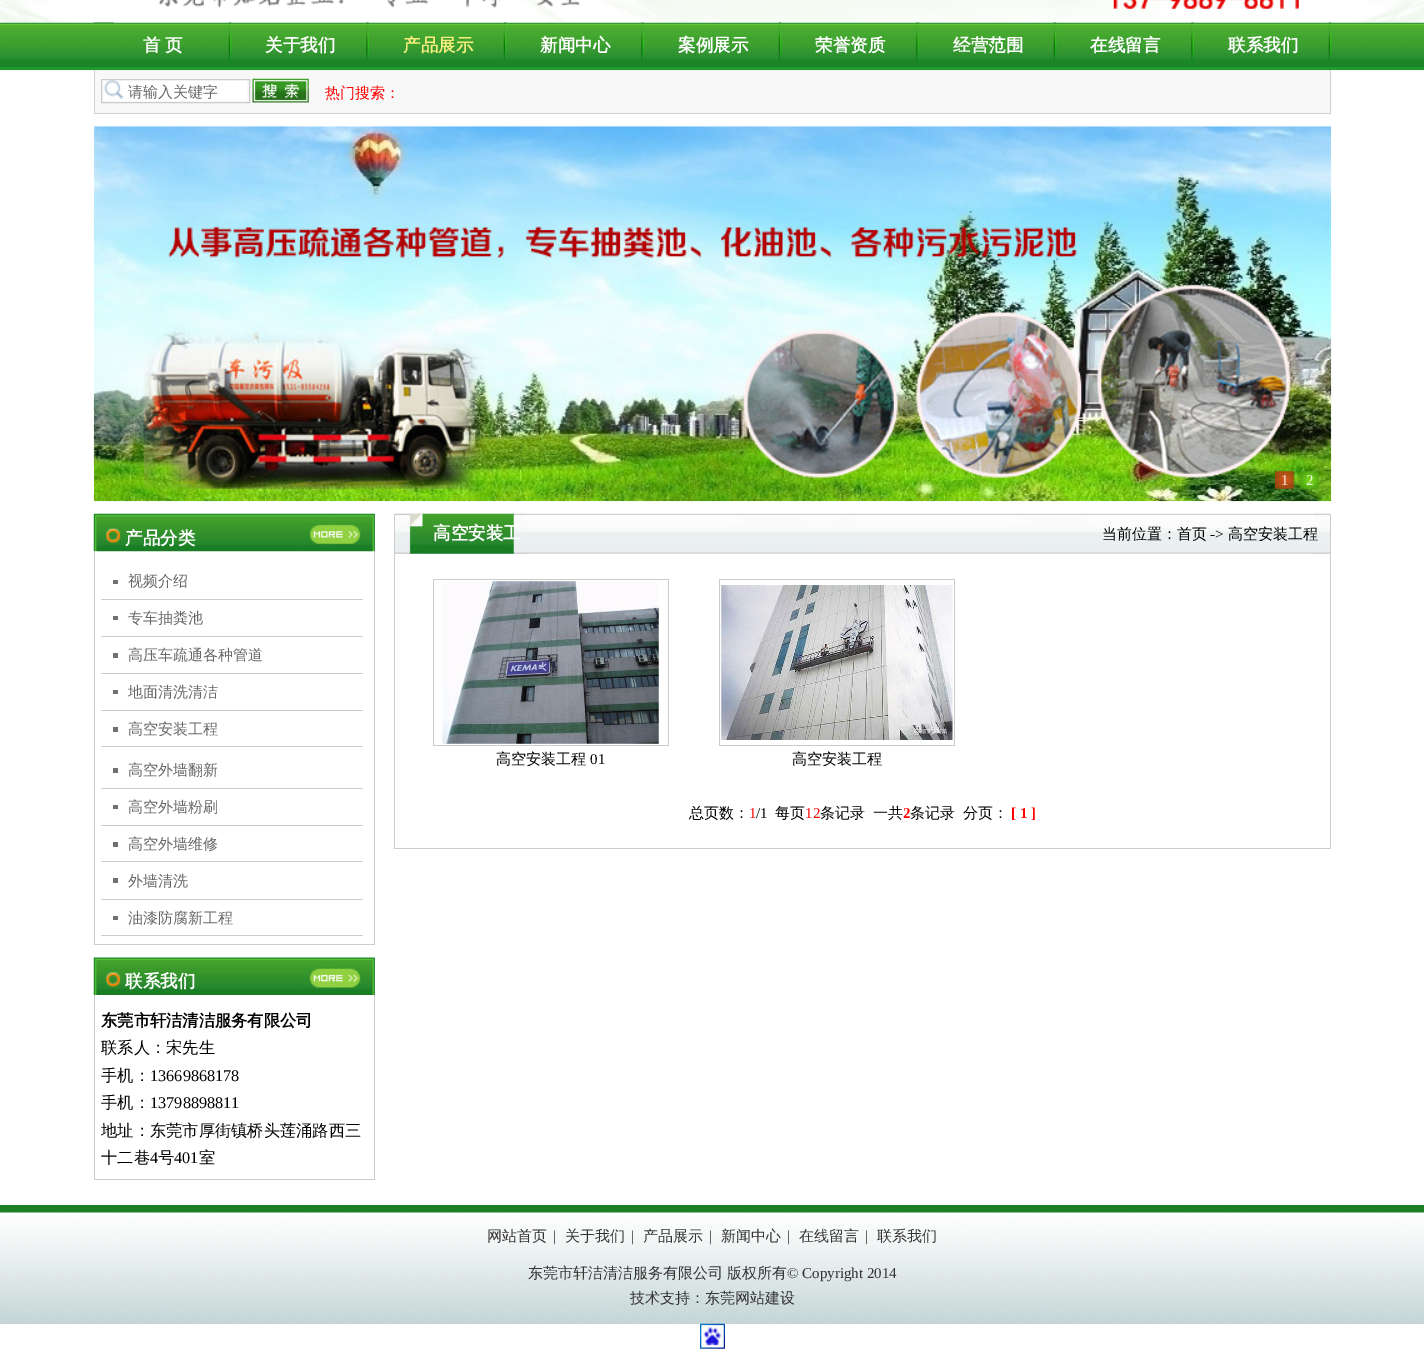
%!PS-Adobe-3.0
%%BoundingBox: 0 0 1424 1354
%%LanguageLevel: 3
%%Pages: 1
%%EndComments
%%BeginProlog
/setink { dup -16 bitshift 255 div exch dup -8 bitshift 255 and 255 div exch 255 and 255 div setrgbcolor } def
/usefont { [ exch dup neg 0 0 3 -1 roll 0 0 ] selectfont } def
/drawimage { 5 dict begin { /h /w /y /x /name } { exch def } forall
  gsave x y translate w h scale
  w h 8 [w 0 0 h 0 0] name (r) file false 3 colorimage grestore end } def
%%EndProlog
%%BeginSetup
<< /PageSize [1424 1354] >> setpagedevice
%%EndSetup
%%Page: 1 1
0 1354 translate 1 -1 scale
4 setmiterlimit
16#FFFFFF setink
0 0 1424 1354 rectfill
(img4.raw) 0 22 1424 48 drawimage
(img1.raw) 0 0 1424 23 drawimage
(img2.raw) 158 0 422 8 drawimage
(img3.raw) 1113 0 186 9 drawimage
(img5.raw) 93 22 21 1 drawimage
(img6.raw) 228 22 4 41 drawimage
/WenQuanYiZenHei-Bold 17.5 usefont
143 51 moveto -1 0 32 (首 页) widthshow
(img7.raw) 366 22 3 40 drawimage
265 51 moveto (关于我们) show
(img8.raw) 503 22 4 40 drawimage
16#F7ED7E setink
403 51 moveto (产品展示) show
(img9.raw) 641 22 3 40 drawimage
16#FFFFFF setink
540 51 moveto (新闻中心) show
(img10.raw) 778 22 4 41 drawimage
678 51 moveto (案例展示) show
(img11.raw) 916 22 3 41 drawimage
815 51 moveto (荣誉资质) show
(img12.raw) 1053 22 4 40 drawimage
953 51 moveto (经营范围) show
(img13.raw) 1191 22 3 40 drawimage
1090 51 moveto (在线留言) show
(img14.raw) 1328 22 4 41 drawimage
1228 51 moveto (联系我们) show
[
    [95 70 1235 43 16#F8F8F8]
    [1330 70 1 44 16#D0D0D0]
    [94 113 1237 1 16#D0D0D0]
    [94 70 1 44 16#D0D0D0]
] { aload pop setink rectfill } forall
(img15.raw) 103 80 144 21 drawimage
16#CCCCCC setink
101.5 79.5 148 23 rectstroke
/WenQuanYiZenHei-Medium 15 usefont
16#666666 setink
128 97 moveto (请输入关键字) show
(img16.raw) 252 78 57 25 drawimage
16#FF0000 setink
325 98 moveto (热门搜索：) show
(img17.raw) 93 126 1239 376 drawimage
(img18.raw) 1275 471 19 18 drawimage
/LiberationSerif-Regular 15 usefont
16#F9EEE8 setink
1281 485 moveto (1) show
(img19.raw) 1300 471 19 18 drawimage
16#F0FAE8 setink
1306 485 moveto (2) show
(img20.raw) 93 513 282 39 drawimage
/WenQuanYiZenHei-Bold 17.5 usefont
16#FFFFFF setink
125 544 moveto (产品分类) show
(img21.raw) 309 524 52 20 drawimage
[
    [374 551 1 394 16#CCCCCC]
    [94 944 281 1 16#CCCCCC]
    [94 551 1 394 16#CCCCCC]
    [101 599 262 1 16#CCCCCC]
    [113 580 5 4 16#726F6F]
] { aload pop setink rectfill } forall
/WenQuanYiZenHei-Medium 15 usefont
16#666666 setink
128 586 moveto (视频介绍) show
16#CCCCCC setink
101 636 262 1 rectfill
16#726F6F setink
113 616 5 4 rectfill
16#666666 setink
128 623 moveto (专车抽粪池) show
16#CCCCCC setink
101 673 262 1 rectfill
16#726F6F setink
113 653 5 5 rectfill
16#666666 setink
128 660 moveto (高压车疏通各种管道) show
16#CCCCCC setink
101 710 262 1 rectfill
16#726F6F setink
113 690 5 4 rectfill
16#666666 setink
128 697 moveto (地面清洗清洁) show
16#CCCCCC setink
101 746 262 1 rectfill
16#726F6F setink
113 727 5 5 rectfill
16#666666 setink
128 734 moveto (高空安装工程) show
16#CCCCCC setink
101 788 262 1 rectfill
16#726F6F setink
113 768 5 5 rectfill
16#666666 setink
128 775 moveto (高空外墙翻新) show
16#CCCCCC setink
101 825 262 1 rectfill
16#726F6F setink
113 805 5 4 rectfill
16#666666 setink
128 812 moveto (高空外墙粉刷) show
16#CCCCCC setink
101 861 262 1 rectfill
16#726F6F setink
113 842 5 5 rectfill
16#666666 setink
128 849 moveto (高空外墙维修) show
16#CCCCCC setink
101 899 262 1 rectfill
16#726F6F setink
113 878 5 5 rectfill
16#666666 setink
128 886 moveto (外墙清洗) show
16#CCCCCC setink
101 935 262 1 rectfill
16#726F6F setink
113 916 5 4 rectfill
16#666666 setink
128 923 moveto (油漆防腐新工程) show
(img22.raw) 93 957 282 38 drawimage
/WenQuanYiZenHei-Bold 17.5 usefont
16#FFFFFF setink
125 987 moveto (联系我们) show
(img23.raw) 309 968 52 20 drawimage
[
    [374 995 1 185 16#CCCCCC]
    [94 1179 281 1 16#CCCCCC]
    [94 995 1 185 16#CCCCCC]
] { aload pop setink rectfill } forall
/WenQuanYiZenHei-Bold 16.25 usefont
16#000000 setink
101 1026 moveto (东莞市轩洁清洁服务有限公司) show
/WenQuanYiZenHei-Medium 16.25 usefont
101 1053 moveto (联系人：宋先生) show
101 1081 moveto (手机：) show
/LiberationSerif-Regular 16.25 usefont
150 1081 moveto (13669868178) show
/WenQuanYiZenHei-Medium 16.25 usefont
101 1108 moveto (手机：) show
/LiberationSerif-Regular 16.25 usefont
150 1108 moveto (13798898811) show
/WenQuanYiZenHei-Medium 16.25 usefont
101 1136 moveto (地址：东莞市厚街镇桥头莲涌路西三) show
101 1163 moveto (十二巷) show
/LiberationSerif-Regular 16.25 usefont
150 1163 moveto (4) show
/WenQuanYiZenHei-Medium 16.25 usefont
158 1163 moveto (号) show
/LiberationSerif-Regular 16.25 usefont
174 1163 moveto (401) show
/WenQuanYiZenHei-Medium 16.25 usefont
199 1163 moveto (室) show
[
    [1330 514 1 335 16#CCCCCC]
    [394 848 937 1 16#CCCCCC]
    [394 514 1 335 16#CCCCCC]
] { aload pop setink rectfill } forall
(img24.raw) 395 513 935 41 drawimage
(img25.raw) 395 513 130 41 drawimage
/WenQuanYiZenHei-Bold 17.5 usefont
16#FFFFFF setink
433 539 moveto (高空安装工) show
(img26.raw) 1314 513 16 41 drawimage
/WenQuanYiZenHei-Medium 15 usefont
16#000000 setink
1102 539 moveto (当前位置：首页) show
/LiberationSerif-Regular 15 usefont
1210 539 moveto (->) show
/WenQuanYiZenHei-Medium 15 usefont
1228 539 moveto (高空安装工程) show
[
    [433 579 236 1 16#CCCCCC]
    [668 579 1 167 16#CCCCCC]
    [433 745 236 1 16#CCCCCC]
    [433 579 1 167 16#CCCCCC]
] { aload pop setink rectfill } forall
(img27.raw) 442 581 217 163 drawimage
16#000000 setink
496 764 moveto (高空安装工程) show
/LiberationSerif-Regular 15 usefont
590 764 moveto (01) show
[
    [719 579 236 1 16#CCCCCC]
    [954 579 1 167 16#CCCCCC]
    [719 745 236 1 16#CCCCCC]
    [719 579 1 167 16#CCCCCC]
] { aload pop setink rectfill } forall
(img28.raw) 721 585 232 155 drawimage
/WenQuanYiZenHei-Medium 15 usefont
16#000000 setink
792 764 moveto (高空安装工程) show
689 818 moveto (总页数：) show
/LiberationSerif-Regular 15 usefont
16#FF0000 setink
749 818 moveto (1) show
16#000000 setink
756 818 moveto (/1) show
/WenQuanYiZenHei-Medium 15 usefont
775 818 moveto (每页) show
/LiberationSerif-Regular 15 usefont
16#FF0000 setink
805 818 moveto (12) show
/WenQuanYiZenHei-Medium 15 usefont
16#000000 setink
820 818 moveto (条记录) show
873 818 moveto (一共) show
/LiberationSerif-Bold 15 usefont
16#FF0000 setink
903 818 moveto (2) show
/WenQuanYiZenHei-Medium 15 usefont
16#000000 setink
910 818 moveto (条记录) show
963 818 moveto (分页：) show
/LiberationSerif-Bold 15 usefont
16#FF0000 setink
1011 818 moveto ([ 1 ]) show
(img29.raw) 0 1205 1424 119 drawimage
/WenQuanYiZenHei-Medium 15 usefont
16#333333 setink
487 1241 moveto (网站首页) show
/LiberationSerif-Regular 15 usefont
553 1241 moveto (|) show
/WenQuanYiZenHei-Medium 15 usefont
565 1241 moveto (关于我们) show
/LiberationSerif-Regular 15 usefont
631 1241 moveto (|) show
/WenQuanYiZenHei-Medium 15 usefont
643 1241 moveto (产品展示) show
/LiberationSerif-Regular 15 usefont
709 1241 moveto (|) show
/WenQuanYiZenHei-Medium 15 usefont
721 1241 moveto (新闻中心) show
/LiberationSerif-Regular 15 usefont
787 1241 moveto (|) show
/WenQuanYiZenHei-Medium 15 usefont
799 1241 moveto (在线留言) show
/LiberationSerif-Regular 15 usefont
865 1241 moveto (|) show
/WenQuanYiZenHei-Medium 15 usefont
[
    [(联系我们) 877 1241]
    [(东莞市轩洁清洁服务有限公司) 528 1278]
    [(版权所有) 727 1278]
] { aload pop moveto show } forall
/LiberationSerif-Regular 15 usefont
787 1278 moveto (© Copyright 2014) show
/WenQuanYiZenHei-Medium 15 usefont
630 1303 moveto (技术支持：东莞网站建设) show
(img30.raw) 700 1323 25 26 drawimage
showpage
%%EOF
